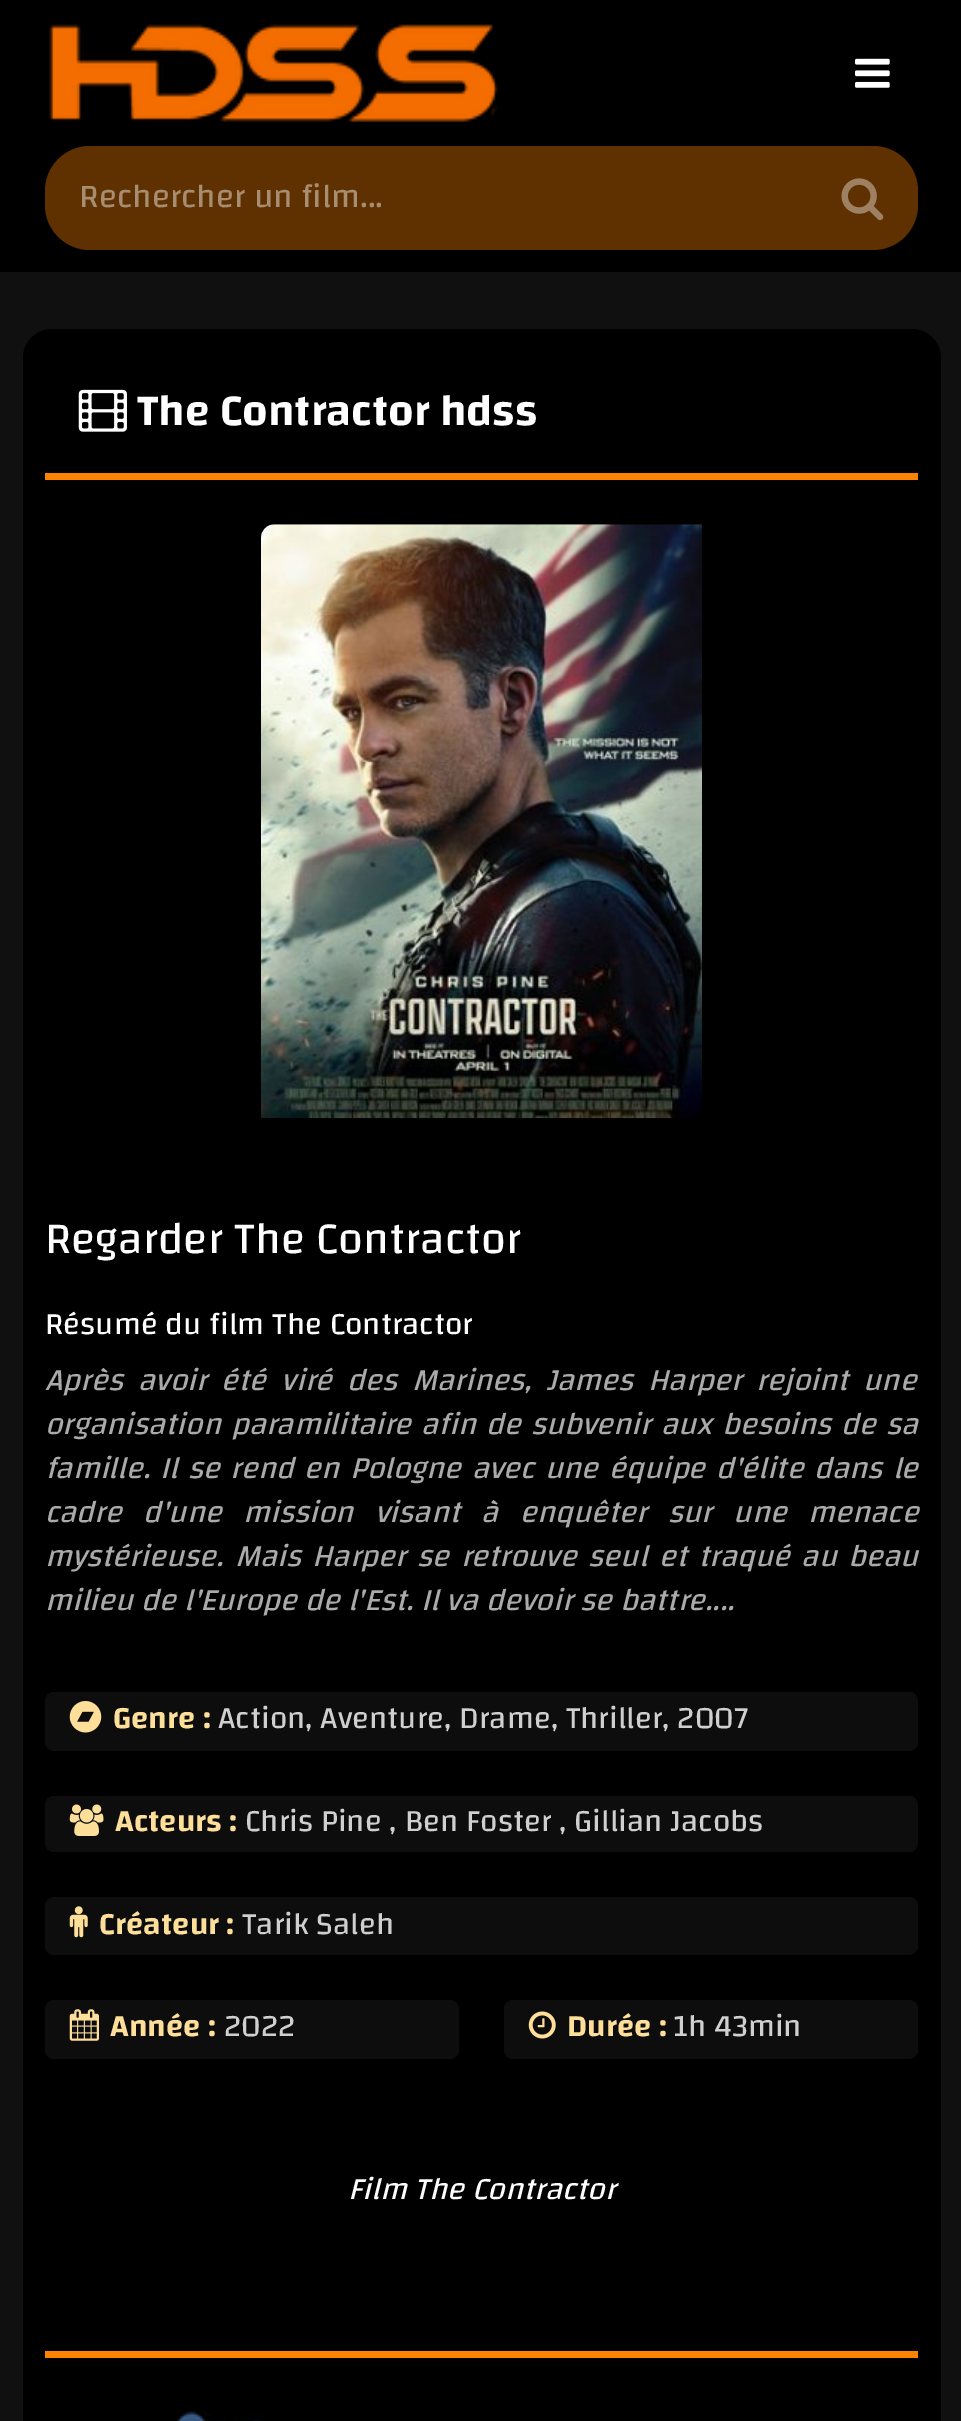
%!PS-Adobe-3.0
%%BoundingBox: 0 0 961 2421
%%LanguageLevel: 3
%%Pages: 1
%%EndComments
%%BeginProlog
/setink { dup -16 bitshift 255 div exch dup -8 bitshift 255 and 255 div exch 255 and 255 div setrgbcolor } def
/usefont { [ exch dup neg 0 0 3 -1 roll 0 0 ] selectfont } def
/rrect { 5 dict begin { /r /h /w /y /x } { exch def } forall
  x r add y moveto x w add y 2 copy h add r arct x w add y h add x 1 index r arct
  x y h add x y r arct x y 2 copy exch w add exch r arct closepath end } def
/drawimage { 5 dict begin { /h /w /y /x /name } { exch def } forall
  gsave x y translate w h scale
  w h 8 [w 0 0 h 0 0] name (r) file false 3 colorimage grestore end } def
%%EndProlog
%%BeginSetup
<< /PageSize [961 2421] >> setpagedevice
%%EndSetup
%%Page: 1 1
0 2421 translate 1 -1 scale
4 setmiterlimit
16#101010 setink
0 0 961 2421 rectfill
16#000000 setink
0 0 961 272 rectfill
(img1.raw) 49 24 449 98 drawimage
(img2.raw) 855 58 35 30 drawimage
16#603100 setink
45 146 873 104 45 rrect fill
/Changa-Regular 33.75 usefont
16#A78D72 setink
79 207 moveto (Rechercher un film...) show
(img3.raw) 841 178 43 43 drawimage
16#000000 setink
23 329 918 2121 29 rrect fill
16#FF8100 setink
45 473 873 7 rectfill
(img4.raw) 78 389 49 43 drawimage
/Changa-SemiBold 45 usefont
16#FFFFFF setink
137 425 moveto (The Contractor hdss) show
(img5.raw) 261 524 441 595 drawimage
/Changa-Regular 45 usefont
45 1253 moveto (Regarder The Contractor) show
/Changa-Regular 31.5 usefont
45 1334 moveto (Résumé du film The Contractor) show
/Changa-Italic 31.5 usefont
16#AAAAAA setink
45 1390 moveto 7 0 32 (Après avoir été viré des Marines, James Harper rejoint une) widthshow
45 1434 moveto 2 0 32 (organisation paramilitaire afin de subvenir aux besoins de sa) widthshow
45 1478 moveto 2.5 0 32 (famille. Il se rend en Pologne avec une équipe d'élite dans le) widthshow
45 1522 moveto 13.5 0 32 (cadre d'une mission visant à enquêter sur une menace) widthshow
45 1566 moveto 3.5 0 32 (mystérieuse. Mais Harper se retrouve seul et traqué au beau) widthshow
45 1610 moveto (milieu de l'Europe de l'Est. Il va devoir se battre....) show
16#0D0D0D setink
45 1692 873 59 9 rrect fill
(img6.raw) 69 1701 33 32 drawimage
/Changa-SemiBold 31.5 usefont
16#FDDF9A setink
113 1728 moveto (Genre :) show
/Changa-Regular 31.5 usefont
16#CFCFCF setink
218 1728 moveto (Action, Aventure, Drame, Thriller, 2007) show
16#0D0D0D setink
45 1796 873 56 9 rrect fill
(img7.raw) 69 1804 35 32 drawimage
/Changa-SemiBold 31.5 usefont
16#FDDF9A setink
115 1831 moveto (Acteurs :) show
/Changa-Regular 31.5 usefont
16#CFCFCF setink
245 1831 moveto (Chris Pine , Ben Foster , Gillian Jacobs) show
16#0D0D0D setink
45 1897 873 58 9 rrect fill
(img8.raw) 69 1906 19 32 drawimage
/Changa-SemiBold 31.5 usefont
16#FDDF9A setink
99 1934 moveto (Créateur :) show
/Changa-Regular 31.5 usefont
16#CFCFCF setink
242 1934 moveto (Tarik Saleh) show
16#0D0D0D setink
45 2000 414 59 9 rrect fill
(img9.raw) 69 2009 30 32 drawimage
/Changa-SemiBold 31.5 usefont
16#FDDF9A setink
110 2036 moveto (Année :) show
/Changa-Regular 31.5 usefont
16#CFCFCF setink
224 2036 moveto (2022) show
16#0D0D0D setink
504 2000 414 59 9 rrect fill
(img10.raw) 528 2011 28 28 drawimage
/Changa-SemiBold 31.5 usefont
16#FDDF9A setink
567 2036 moveto (Durée :) show
/Changa-Regular 31.5 usefont
16#CFCFCF setink
674 2036 moveto (1h 43min) show
/Changa-Italic 31.5 usefont
16#FFFFFF setink
348 2199 moveto (Film The Contractor) show
16#FF8100 setink
45 2351 873 7 rectfill
(img11.raw) 177 2411 84 10 drawimage
showpage
%%EOF
